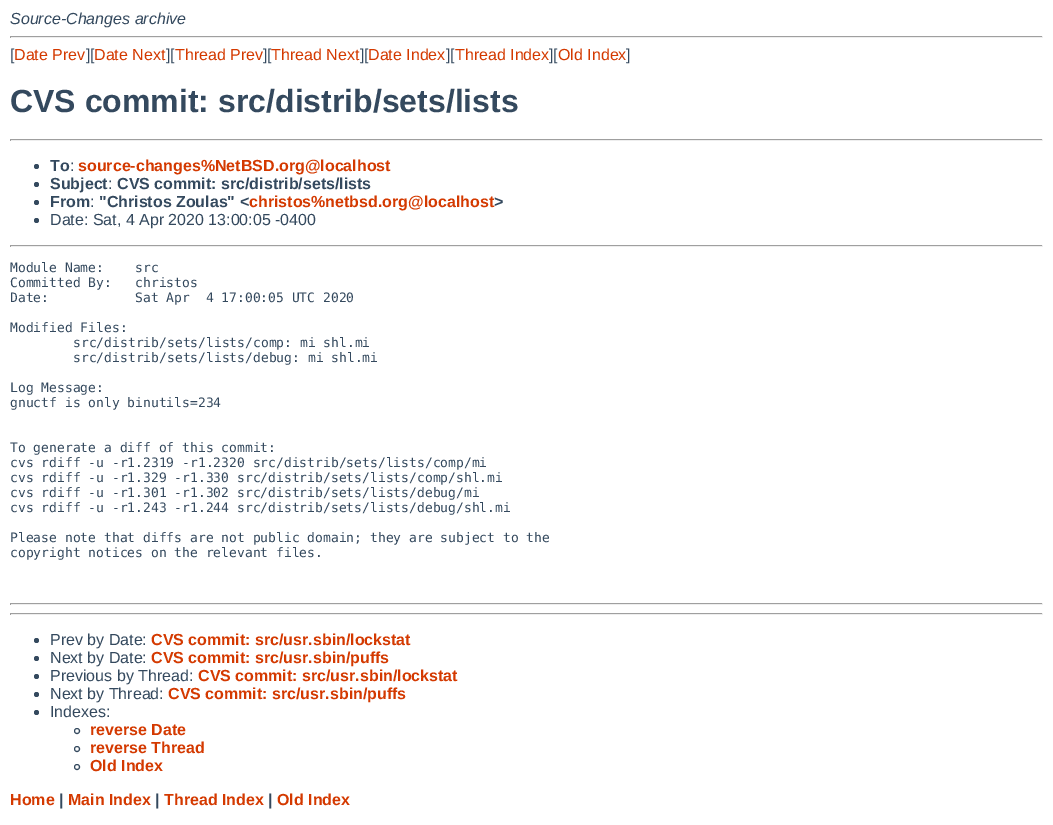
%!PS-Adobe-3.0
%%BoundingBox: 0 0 1053 825
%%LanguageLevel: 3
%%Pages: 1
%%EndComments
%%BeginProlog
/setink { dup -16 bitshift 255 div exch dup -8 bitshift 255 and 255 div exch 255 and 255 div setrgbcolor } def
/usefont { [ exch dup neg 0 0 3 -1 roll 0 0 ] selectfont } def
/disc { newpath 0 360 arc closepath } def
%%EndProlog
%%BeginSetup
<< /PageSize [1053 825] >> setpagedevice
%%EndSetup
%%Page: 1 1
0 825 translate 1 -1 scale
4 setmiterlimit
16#FFFFFF setink
0 0 1053 825 rectfill
/LiberationSans-Italic 16 usefont
16#34495E setink
10 24 moveto (Source-Changes archive) show
[
    [10 36 1033 1 16#9F9F9F]
    [1042 36 1 2 16#EEEEEE]
    [10 37 1033 1 16#EEEEEE]
    [10 36 1 2 16#9F9F9F]
] { aload pop setink rectfill } forall
/LiberationSans-Regular 16 usefont
16#34495E setink
10 60 moveto ([) show
16#D43900 setink
14 60 moveto (Date Prev) show
16#34495E setink
86 60 moveto (][) show
16#D43900 setink
94 60 moveto (Date Next) show
16#34495E setink
166 60 moveto (][) show
16#D43900 setink
175 60 moveto (Thread Prev) show
16#34495E setink
263 60 moveto (][) show
16#D43900 setink
271 60 moveto (Thread Next) show
16#34495E setink
360 60 moveto (][) show
16#D43900 setink
368 60 moveto (Date Index) show
16#34495E setink
446 60 moveto (][) show
16#D43900 setink
455 60 moveto (Thread Index) show
16#34495E setink
549 60 moveto (][) show
16#D43900 setink
558 60 moveto (Old Index) show
16#34495E setink
626 60 moveto (]) show
/LiberationSans-Bold 32 usefont
10 112 moveto (CVS commit: src/distrib/sets/lists) show
[
    [10 139 1033 1 16#9F9F9F]
    [1042 139 1 2 16#EEEEEE]
    [10 140 1033 1 16#EEEEEE]
    [10 139 1 2 16#9F9F9F]
] { aload pop setink rectfill } forall
16#34495E setink
36.5 166.5 2.5 disc fill
/LiberationSans-Bold 16 usefont
50 171 moveto (To) show
/LiberationSans-Regular 16 usefont
70 171 moveto (:) show
/LiberationSans-Bold 16 usefont
16#D43900 setink
78 171 moveto (source-changes%NetBSD.org@localhost) show
16#34495E setink
36.5 184.5 2.5 disc fill
50 189 moveto (Subject) show
/LiberationSans-Regular 16 usefont
108 189 moveto (:) show
/LiberationSans-Bold 16 usefont
117 189 moveto (CVS commit: src/distrib/sets/lists) show
36.5 202.5 2.5 disc fill
50 207 moveto (From) show
/LiberationSans-Regular 16 usefont
90 207 moveto (:) show
/LiberationSans-Bold 16 usefont
99 207 moveto ("Christos Zoulas" <) show
16#D43900 setink
249 207 moveto (christos%netbsd.org@localhost) show
16#34495E setink
494 207 moveto (>) show
36.5 220.5 2.5 disc fill
/LiberationSans-Regular 16 usefont
50 225 moveto (Date: Sat, 4 Apr 2020 13:00:05 -0400) show
[
    [10 245 1033 1 16#9F9F9F]
    [1042 245 1 2 16#EEEEEE]
    [10 246 1033 1 16#EEEEEE]
    [10 245 1 2 16#9F9F9F]
] { aload pop setink rectfill } forall
/DejaVuSansMono-Regular 13 usefont
16#34495E setink
[
    [(Module Name:    src) 10 272]
    [(Committed By:   christos) 10 287]
    [(Date:           Sat Apr  4 17:00:05 UTC 2020) 10 302]
    [(Modified Files:) 10 332]
    [(src/distrib/sets/lists/comp: mi shl.mi) 73 347]
    [(src/distrib/sets/lists/debug: mi shl.mi) 73 362]
    [(Log Message:) 10 392]
    [(gnuctf is only binutils=234) 10 407]
    [(To generate a diff of this commit:) 10 452]
    [(cvs rdiff -u -r1.2319 -r1.2320 src/distrib/sets/lists/comp/mi) 10 467]
    [(cvs rdiff -u -r1.329 -r1.330 src/distrib/sets/lists/comp/shl.mi) 10 482]
    [(cvs rdiff -u -r1.301 -r1.302 src/distrib/sets/lists/debug/mi) 10 497]
    [(cvs rdiff -u -r1.243 -r1.244 src/distrib/sets/lists/debug/shl.mi) 10 512]
    [(Please note that diffs are not public domain; they are subject to the) 10 542]
    [(copyright notices on the relevant files.) 10 557]
] { aload pop moveto show } forall
[
    [10 603 1033 1 16#9F9F9F]
    [1042 603 1 2 16#EEEEEE]
    [10 604 1033 1 16#EEEEEE]
    [10 603 1 2 16#9F9F9F]
    [10 613 1033 1 16#9F9F9F]
    [1042 613 1 2 16#EEEEEE]
    [10 614 1033 1 16#EEEEEE]
    [10 613 1 2 16#9F9F9F]
] { aload pop setink rectfill } forall
16#34495E setink
36.5 640.5 2.5 disc fill
/LiberationSans-Regular 16 usefont
50 645 moveto (Prev by Date:) show
/LiberationSans-Bold 16 usefont
16#D43900 setink
151 645 moveto (CVS commit: src/usr.sbin/lockstat) show
16#34495E setink
36.5 658.5 2.5 disc fill
/LiberationSans-Regular 16 usefont
50 663 moveto (Next by Date:) show
/LiberationSans-Bold 16 usefont
16#D43900 setink
151 663 moveto (CVS commit: src/usr.sbin/puffs) show
16#34495E setink
36.5 676.5 2.5 disc fill
/LiberationSans-Regular 16 usefont
50 681 moveto (Previous by Thread:) show
/LiberationSans-Bold 16 usefont
16#D43900 setink
198 681 moveto (CVS commit: src/usr.sbin/lockstat) show
16#34495E setink
36.5 694.5 2.5 disc fill
/LiberationSans-Regular 16 usefont
50 699 moveto (Next by Thread:) show
/LiberationSans-Bold 16 usefont
16#D43900 setink
168 699 moveto (CVS commit: src/usr.sbin/puffs) show
16#34495E setink
36.5 712.5 2.5 disc fill
/LiberationSans-Regular 16 usefont
50 717 moveto (Indexes:) show
77 731 2.5 disc stroke
/LiberationSans-Bold 16 usefont
16#D43900 setink
90 735 moveto (reverse Date) show
16#34495E setink
77 749 2.5 disc stroke
16#D43900 setink
90 753 moveto (reverse Thread) show
16#34495E setink
77 767 2.5 disc stroke
16#D43900 setink
90 771 moveto (Old Index) show
10 805 moveto (Home) show
16#34495E setink
59 805 moveto (|) show
16#D43900 setink
68 805 moveto (Main Index) show
16#34495E setink
155 805 moveto (|) show
16#D43900 setink
164 805 moveto (Thread Index) show
16#34495E setink
268 805 moveto (|) show
16#D43900 setink
277 805 moveto (Old Index) show
showpage
%%EOF
